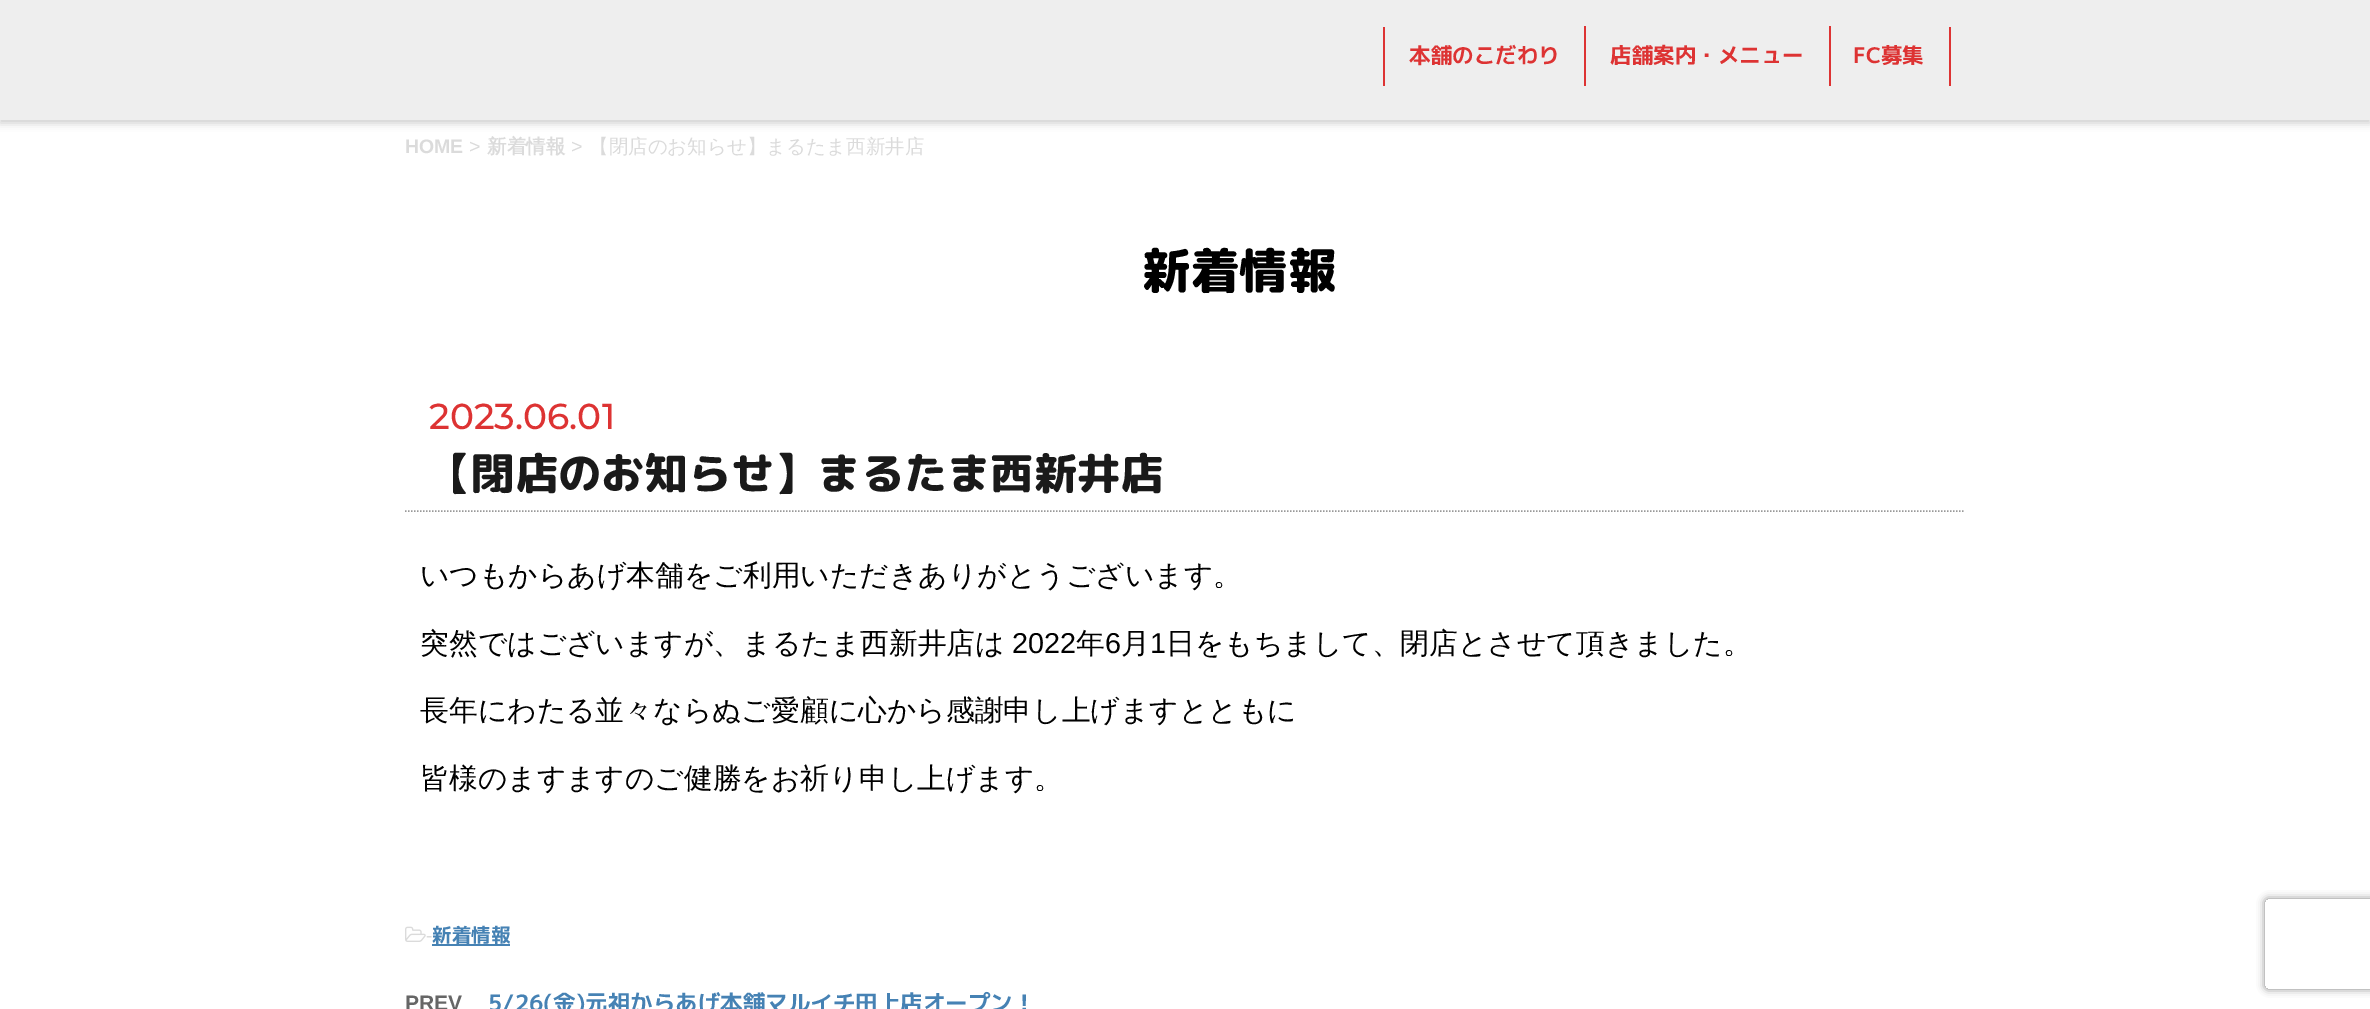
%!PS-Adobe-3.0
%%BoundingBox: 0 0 2370 1009
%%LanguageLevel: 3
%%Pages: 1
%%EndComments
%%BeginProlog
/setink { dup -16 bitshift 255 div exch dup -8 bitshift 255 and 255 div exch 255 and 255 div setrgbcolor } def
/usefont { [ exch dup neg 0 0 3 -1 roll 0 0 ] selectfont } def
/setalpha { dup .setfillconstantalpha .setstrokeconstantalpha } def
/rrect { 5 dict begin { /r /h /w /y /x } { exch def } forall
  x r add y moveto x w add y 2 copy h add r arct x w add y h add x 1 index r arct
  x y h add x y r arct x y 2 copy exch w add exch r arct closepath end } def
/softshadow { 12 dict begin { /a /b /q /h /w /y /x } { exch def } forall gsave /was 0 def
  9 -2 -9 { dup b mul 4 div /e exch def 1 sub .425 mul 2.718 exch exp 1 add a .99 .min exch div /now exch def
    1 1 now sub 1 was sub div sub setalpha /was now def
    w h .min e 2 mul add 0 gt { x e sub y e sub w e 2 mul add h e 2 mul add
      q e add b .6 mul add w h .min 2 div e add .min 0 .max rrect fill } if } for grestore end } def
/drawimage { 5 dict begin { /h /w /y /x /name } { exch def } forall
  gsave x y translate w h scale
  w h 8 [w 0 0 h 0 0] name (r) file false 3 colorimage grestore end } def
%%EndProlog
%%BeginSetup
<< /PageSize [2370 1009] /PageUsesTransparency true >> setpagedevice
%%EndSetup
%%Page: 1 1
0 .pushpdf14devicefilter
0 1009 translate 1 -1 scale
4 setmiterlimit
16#FFFFFF setink
0 0 2370 1009 rectfill
16#000000 setink
0 3 2370 120 0 4 0.2 softshadow
[
    [0 0 2370 120 16#EEEEEE]
    [1949 27 2 59 16#DD3333]
    [1383 27 2 59 16#DD3333]
    [1584 26 2 60 16#DD3333]
] { aload pop setink rectfill } forall
/MPLUS1p-Bold 21.5 usefont
1409 63 moveto (本舗のこだわり) show
1829 26 2 60 rectfill
1610 63 moveto (店舗案内・メニュー) show
1853 63 moveto (FC募集) show
/LiberationSans-Bold 19.5 usefont
16#DBDBDB setink
405 153 moveto (HOME) show
/LiberationSans-Regular 19.5 usefont
469 153 moveto (>) show
/WenQuanYiZenHei-Bold 19.5 usefont
487 153 moveto (新着情報) show
/LiberationSans-Regular 19.5 usefont
571 153 moveto (>) show
/WenQuanYiZenHei-Medium 19.5 usefont
589 153 moveto (【閉店のお知らせ】まるたま西新井店) show
/RoundedMplus1c-ExtraBold 48.5 usefont
16#000000 setink
1142 288 moveto (新着情報) show
/Montserrat-Medium 36 usefont
16#DD3333 setink
429 429 moveto (2023.06.01) show
16#999999 setink
1.5 setlinewidth
[1.5 1.5] 0 setdash
405 511 moveto 1965 511 lineto stroke
/RoundedMplus1c-ExtraBold 43.25 usefont
16#1A1A1A setink
428 489 moveto (【閉店のお知らせ】まるたま西新井店) show
/WenQuanYiZenHei-Medium 28.8 usefont
16#000000 setink
420 585 moveto (いつもからあげ本舗をご利用いただきありがとうございます。) show
420 653 moveto (突然ではございますが、まるたま西新井店は) show
/LiberationSans-Regular 28.8 usefont
1012 653 moveto (2022) show
/WenQuanYiZenHei-Medium 28.8 usefont
1076 653 moveto (年) show
/LiberationSans-Regular 28.8 usefont
1105 653 moveto (6) show
/WenQuanYiZenHei-Medium 28.8 usefont
1121 653 moveto (月) show
/LiberationSans-Regular 28.8 usefont
1150 653 moveto (1) show
/WenQuanYiZenHei-Medium 28.8 usefont
[
    [(日をもちまして、閉店とさせて頂きました。) 1166 653]
    [(長年にわたる並々ならぬご愛顧に心から感謝申し上げますとともに) 420 720]
    [(皆様のますますのご健勝をお祈り申し上げます。) 420 788]
] { aload pop moveto show } forall
(img1.raw) 405 926 21 16 drawimage
/LiberationSans-Regular 19.5 usefont
16#DBDBDB setink
426 942 moveto (-) show
/MPLUS1p-Bold 19.5 usefont
16#4682B4 setink
432 942 moveto (新着情報) show
432 944 78 2 rectfill
/LiberationSans-Bold 21 usefont
16#666666 setink
405 1010 moveto (PREV) show
/MPLUS1p-Bold 22.5 usefont
16#4682B4 setink
488 1011 moveto (5/26\(金\)元祖からあげ本舗マルイチ田上店オープン！) show
gsave
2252 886 moveto 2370 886 lineto 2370 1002 lineto 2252 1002 lineto closepath 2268 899 moveto 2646 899 lineto 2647.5 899 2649 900.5 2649 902 curveto 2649 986 lineto 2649 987.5 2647.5 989 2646 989 curveto 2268 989 lineto 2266.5 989 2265 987.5 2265 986 curveto 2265 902 lineto 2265 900.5 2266.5 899 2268 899 curveto closepath eoclip newpath
16#808080 setink
2265 899 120 90 3 4 1 softshadow
grestore
.poppdf14devicefilter showpage
%%EOF
